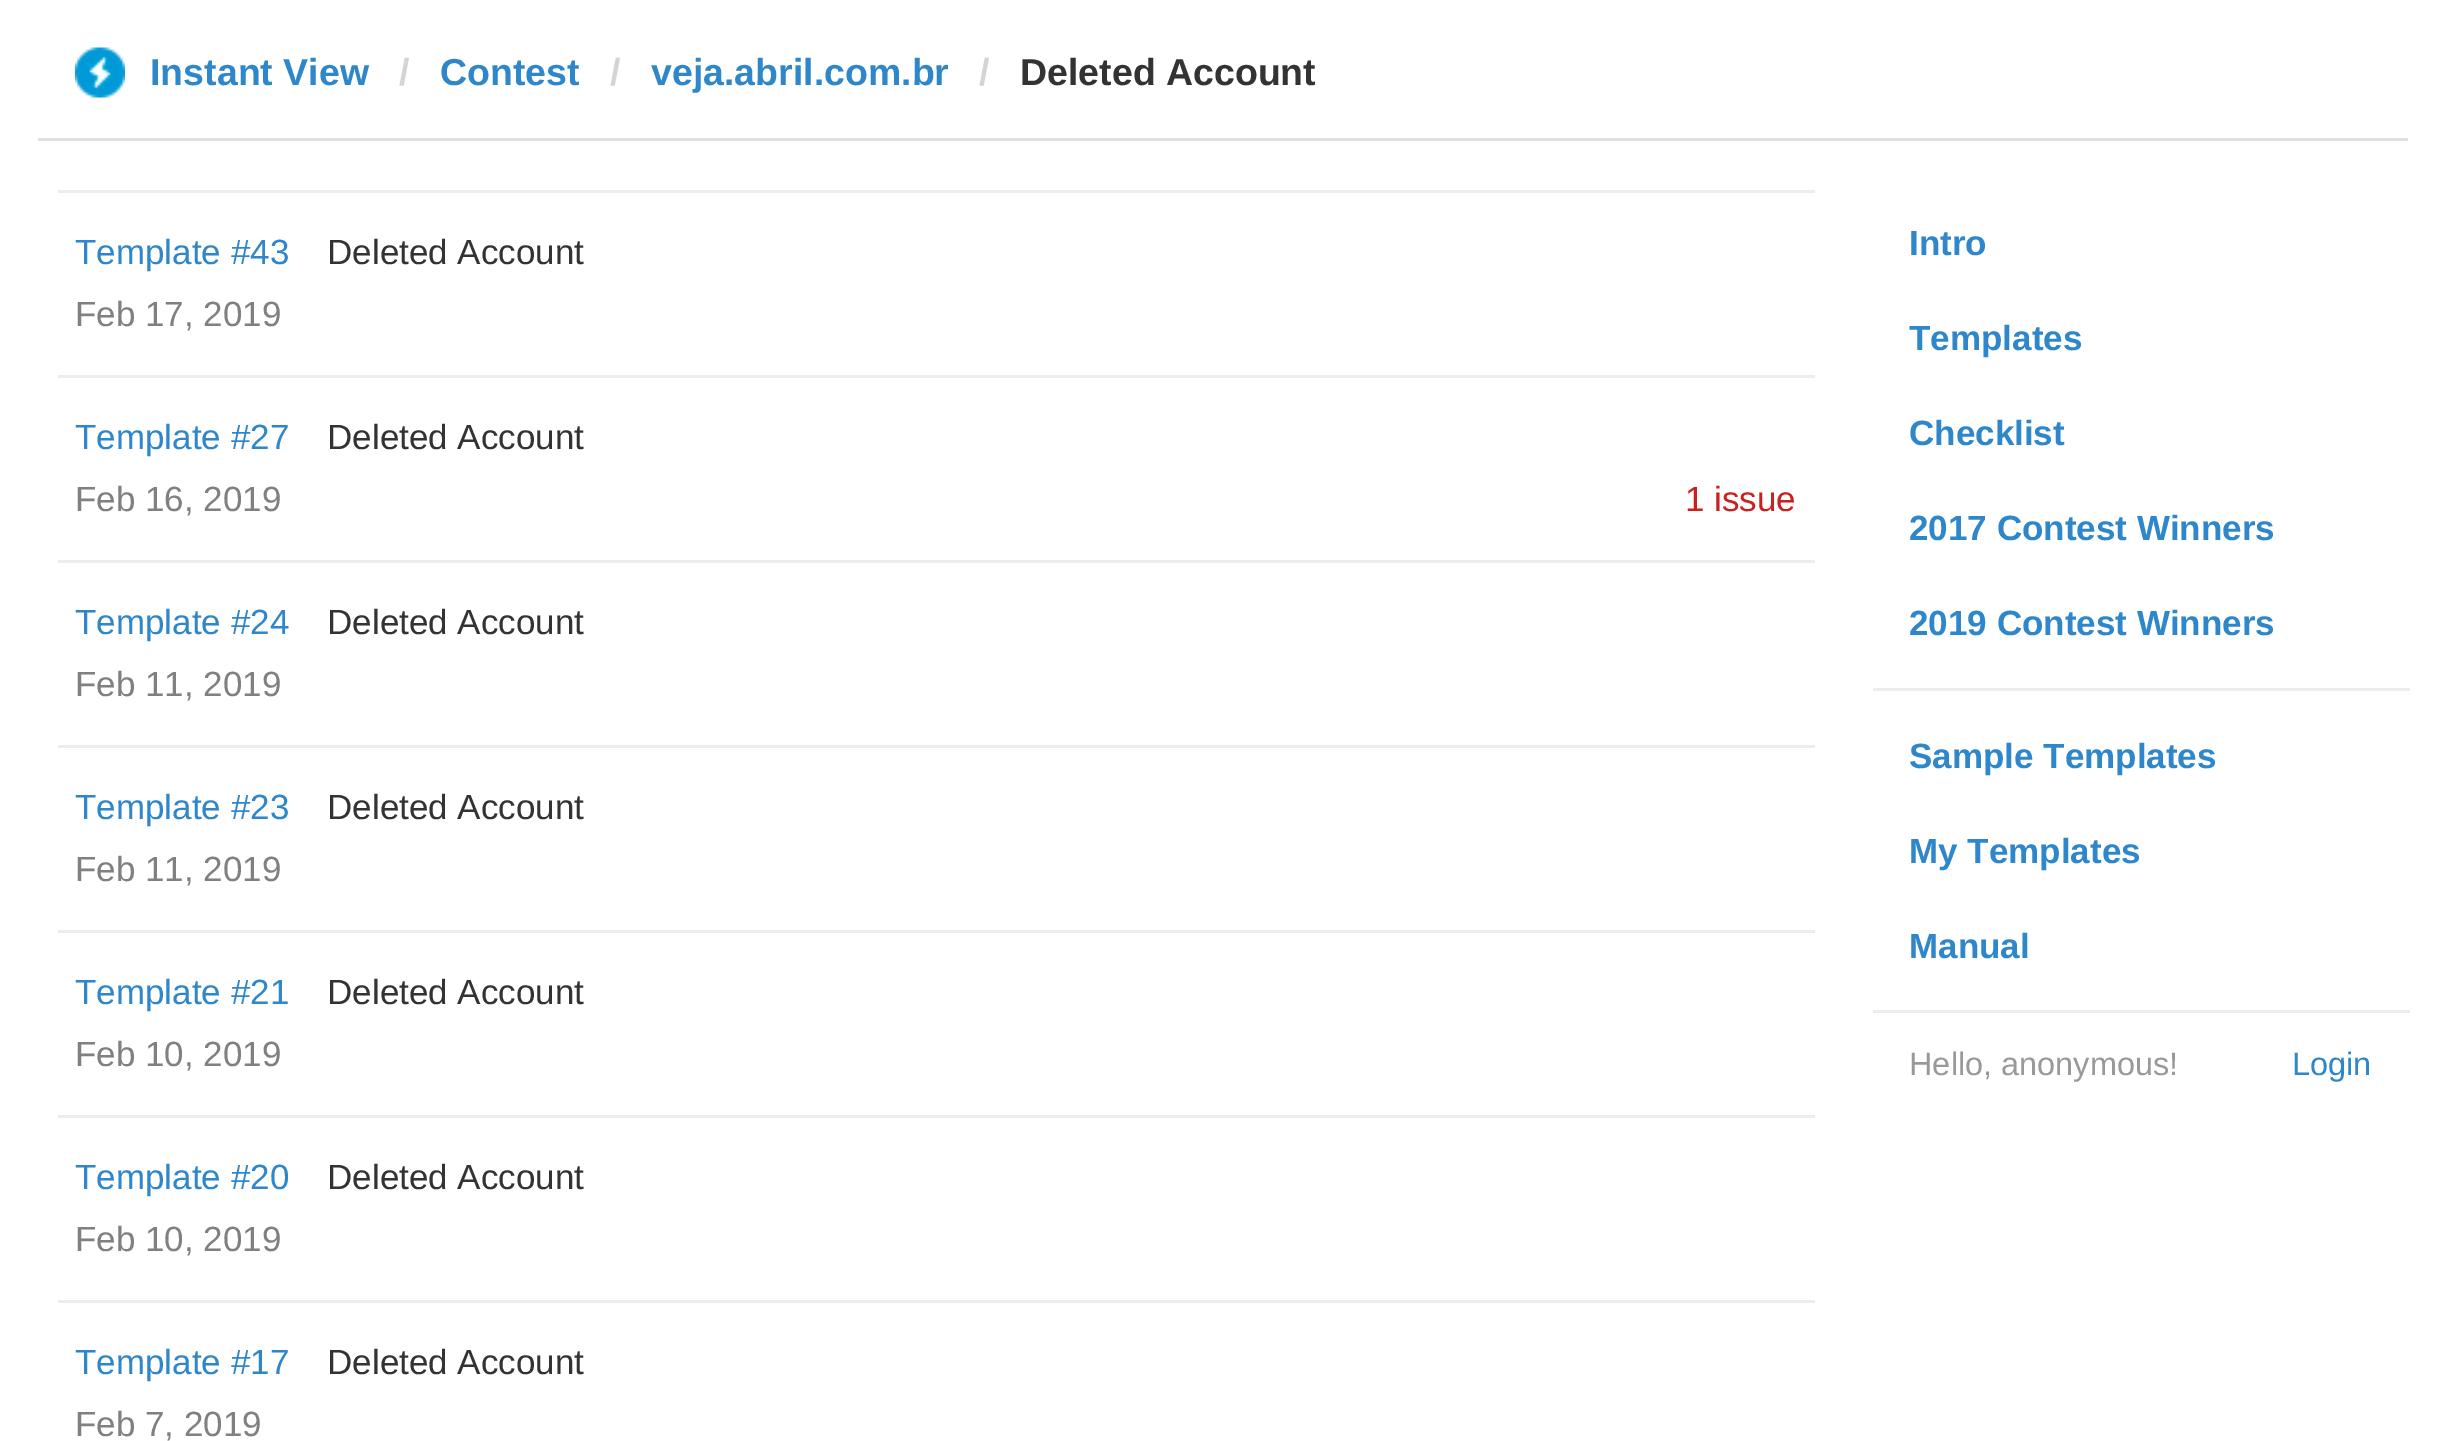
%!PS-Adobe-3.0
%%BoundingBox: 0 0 2444 1441
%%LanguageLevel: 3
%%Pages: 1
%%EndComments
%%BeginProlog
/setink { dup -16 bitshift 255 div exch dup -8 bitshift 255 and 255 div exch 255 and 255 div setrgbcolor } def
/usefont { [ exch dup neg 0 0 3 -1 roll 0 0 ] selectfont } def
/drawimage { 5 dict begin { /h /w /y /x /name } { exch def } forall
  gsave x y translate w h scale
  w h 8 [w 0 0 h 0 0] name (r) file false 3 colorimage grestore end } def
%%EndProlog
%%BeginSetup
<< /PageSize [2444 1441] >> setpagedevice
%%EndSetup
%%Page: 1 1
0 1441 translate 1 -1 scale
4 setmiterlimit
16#FFFFFF setink
0 0 2444 1441 rectfill
16#E0E0E0 setink
38 138 2370 3 rectfill
(img1.raw) 75 47 50 51 drawimage
/LiberationSans-Bold 37.5 usefont
16#2E87CA setink
150 85 moveto (Instant View) show
16#D4D4D4 setink
399 85 moveto (/) show
16#2E87CA setink
440 85 moveto (Contest) show
16#D4D4D4 setink
610 85 moveto (/) show
16#2E87CA setink
651 85 moveto (veja.abril.com.br) show
16#D4D4D4 setink
979 85 moveto (/) show
16#333333 setink
1020 85 moveto (Deleted Account) show
16#EDEDED setink
58 190 1757 3 rectfill
58 375 1757 3 rectfill
/LiberationSans-Regular 35 usefont
16#2E87CA setink
75 264 moveto (Template #43) show
16#333333 setink
327 264 moveto (Deleted Account) show
16#808080 setink
75 326 moveto (Feb 17, 2019) show
16#EDEDED setink
58 560 1757 3 rectfill
16#2E87CA setink
75 449 moveto (Template #27) show
16#333333 setink
327 449 moveto (Deleted Account) show
16#808080 setink
75 511 moveto (Feb 16, 2019) show
16#CB2020 setink
1685 511 moveto (1 issue) show
16#EDEDED setink
58 745 1757 3 rectfill
16#2E87CA setink
75 634 moveto (Template #24) show
16#333333 setink
327 634 moveto (Deleted Account) show
16#808080 setink
75 696 moveto (Feb 11, 2019) show
16#EDEDED setink
58 930 1757 3 rectfill
16#2E87CA setink
75 819 moveto (Template #23) show
16#333333 setink
327 819 moveto (Deleted Account) show
16#808080 setink
75 881 moveto (Feb 11, 2019) show
16#EDEDED setink
58 1115 1757 3 rectfill
16#2E87CA setink
75 1004 moveto (Template #21) show
16#333333 setink
327 1004 moveto (Deleted Account) show
16#808080 setink
75 1066 moveto (Feb 10, 2019) show
16#EDEDED setink
58 1300 1757 3 rectfill
16#2E87CA setink
75 1189 moveto (Template #20) show
16#333333 setink
327 1189 moveto (Deleted Account) show
16#808080 setink
75 1251 moveto (Feb 10, 2019) show
16#2E87CA setink
75 1374 moveto (Template #17) show
16#333333 setink
327 1374 moveto (Deleted Account) show
16#808080 setink
75 1436 moveto (Feb 7, 2019) show
/LiberationSans-Bold 35 usefont
16#2E87CA setink
[
    [(Intro) 1909 255]
    [(Templates) 1909 350]
    [(Checklist) 1909 445]
    [(2017 Contest Winners) 1909 540]
    [(2019 Contest Winners) 1909 635]
] { aload pop moveto show } forall
16#EDEDED setink
1873 688 537 3 rectfill
16#2E87CA setink
[
    [(Sample Templates) 1909 768]
    [(My Templates) 1909 863]
    [(Manual) 1909 958]
] { aload pop moveto show } forall
16#EDEDED setink
1873 1010 537 3 rectfill
/LiberationSans-Regular 32.5 usefont
16#999999 setink
1909 1075 moveto (Hello, anonymous!) show
16#2E87CA setink
2292 1075 moveto (Login) show
showpage
%%EOF
